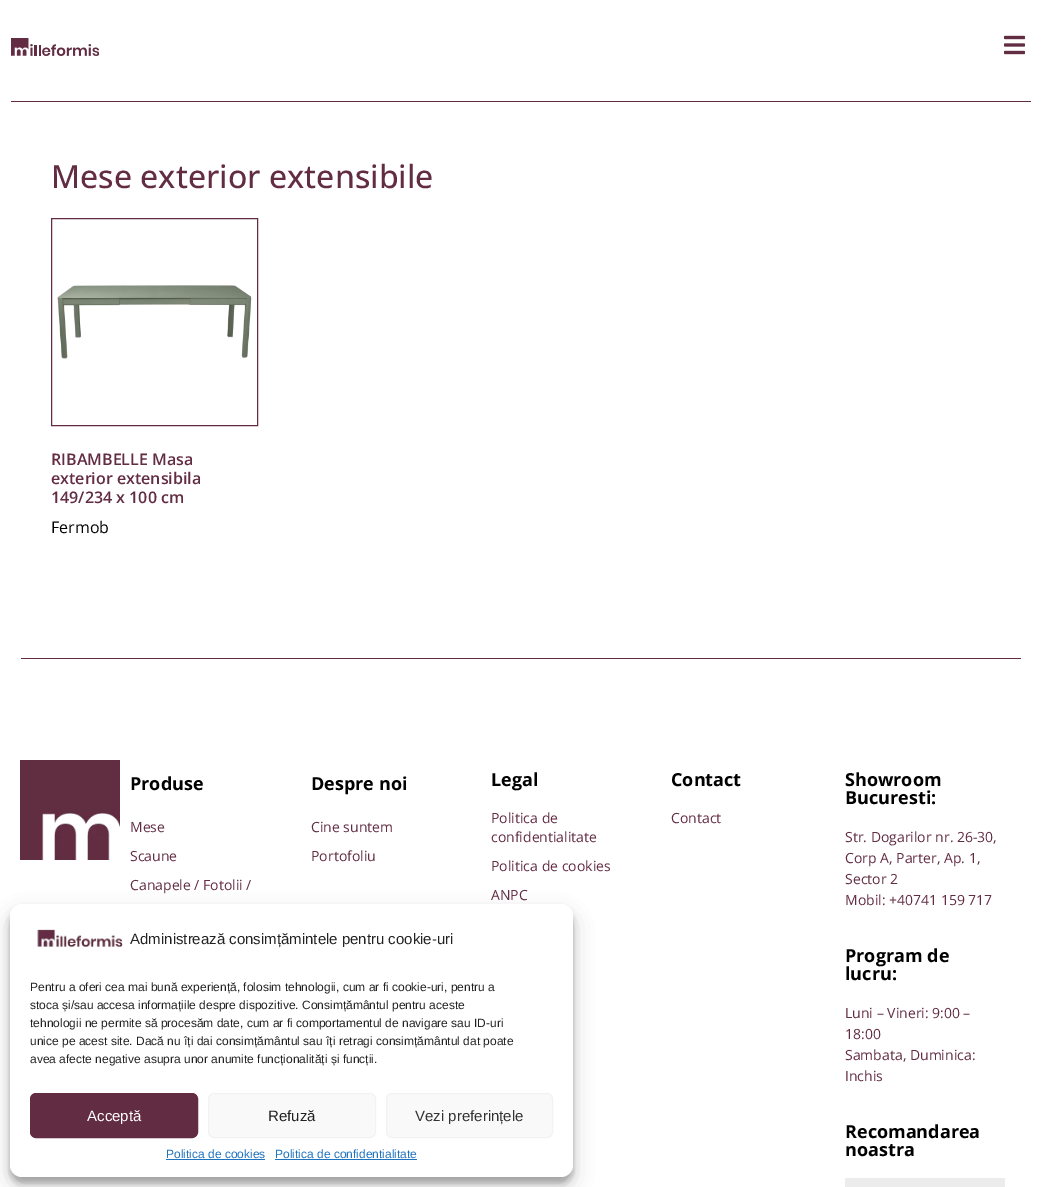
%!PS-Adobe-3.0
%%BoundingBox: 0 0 1042 1187
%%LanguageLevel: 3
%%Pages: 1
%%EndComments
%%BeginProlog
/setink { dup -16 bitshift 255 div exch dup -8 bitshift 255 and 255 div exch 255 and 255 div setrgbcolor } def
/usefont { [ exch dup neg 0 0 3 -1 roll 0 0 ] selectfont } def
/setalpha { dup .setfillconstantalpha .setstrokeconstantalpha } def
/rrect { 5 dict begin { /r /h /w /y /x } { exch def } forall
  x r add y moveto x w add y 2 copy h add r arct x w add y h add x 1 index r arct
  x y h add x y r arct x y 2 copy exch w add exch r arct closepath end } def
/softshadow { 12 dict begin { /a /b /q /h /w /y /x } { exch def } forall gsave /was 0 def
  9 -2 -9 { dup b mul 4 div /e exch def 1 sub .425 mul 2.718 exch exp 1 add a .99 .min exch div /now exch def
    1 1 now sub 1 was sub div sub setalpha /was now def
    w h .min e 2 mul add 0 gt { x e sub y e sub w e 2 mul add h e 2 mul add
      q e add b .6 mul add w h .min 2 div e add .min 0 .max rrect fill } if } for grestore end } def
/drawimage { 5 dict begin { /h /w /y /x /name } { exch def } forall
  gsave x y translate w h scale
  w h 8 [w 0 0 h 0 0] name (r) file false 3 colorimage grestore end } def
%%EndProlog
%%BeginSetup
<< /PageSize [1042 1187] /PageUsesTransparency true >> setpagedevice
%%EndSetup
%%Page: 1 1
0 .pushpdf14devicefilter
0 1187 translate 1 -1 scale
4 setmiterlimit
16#FFFFFF setink
0 0 1042 1187 rectfill
(img1.raw) 11 38 88 18 drawimage
(img2.raw) 1004 35 21 20 drawimage
16#622C42 setink
11 101 1020 1 rectfill
/OpenSans-Medium 32 usefont
51 188 moveto (Mese exterior extensibile) show
51.5 218.5 206 207 rectstroke
(img3.raw) 57 285 195 74 drawimage
/OpenSans-SemiBold 16 usefont
[
    [(RIBAMBELLE Masa) 51 465]
    [(exterior extensibila) 51 484]
    [(149/234 x 100 cm) 51 503]
] { aload pop moveto show } forall
/OpenSans-Regular 16 usefont
16#000000 setink
51 533 moveto (Fermob) show
16#622C42 setink
21 658 1000 1 rectfill
(img4.raw) 20 760 100 100 drawimage
/OpenSans-Bold 18 usefont
16#000000 setink
130 790 moveto (Produse) show
/OpenSans-Regular 14 usefont
16#622C42 setink
[
    [(Mese) 130 832]
    [(Scaune) 130 861]
    [(Canapele / Fotolii /) 130 890]
] { aload pop moveto show } forall
/OpenSans-Bold 18 usefont
16#000000 setink
311 790 moveto (Despre noi) show
/OpenSans-Regular 14 usefont
16#622C42 setink
311 832 moveto (Cine suntem) show
311 861 moveto (Portofoliu) show
/OpenSans-Bold 18 usefont
16#000000 setink
491 786 moveto (Legal) show
/OpenSans-Regular 14 usefont
16#622C42 setink
[
    [(Politica de) 491 823]
    [(confidentialitate) 491 842]
    [(Politica de cookies) 491 871]
    [(ANPC) 491 900]
] { aload pop moveto show } forall
/OpenSans-Bold 18 usefont
16#000000 setink
671 786 moveto (Contact) show
/OpenSans-Regular 14 usefont
16#622C42 setink
671 823 moveto (Contact) show
/OpenSans-Bold 18 usefont
16#000000 setink
845 786 moveto (Showroom) show
845 804 moveto (Bucuresti:) show
/OpenSans-Regular 14 usefont
16#622C42 setink
[
    [(Str. Dogarilor nr. 26-30,) 845 842]
    [(Corp A, Parter, Ap. 1,) 845 863]
    [(Sector 2) 845 884]
    [(Mobil: +40741 159 717) 845 905]
] { aload pop moveto show } forall
/OpenSans-Bold 18 usefont
16#000000 setink
845 962 moveto (Program de) show
845 980 moveto (lucru:) show
/OpenSans-Regular 14 usefont
16#622C42 setink
[
    [(Luni – Vineri: 9:00 –) 845 1018]
    [(18:00) 845 1039]
    [(Sambata, Duminica:) 845 1060]
    [(Inchis) 845 1081]
] { aload pop moveto show } forall
/OpenSans-Bold 18 usefont
16#000000 setink
845 1138 moveto (Recomandarea) show
845 1156 moveto (noastra) show
16#ECECEC setink
845 1178 160 9 rectfill
16#000000 setink
10 910 563 273 12 3 0.23 softshadow
10 914 563 273 12 10 0.19 softshadow
16#FFFFFF setink
10 904 563 273 12 rrect fill
(img5.raw) 37 929 86 18 drawimage
/LiberationSans-Regular 15 usefont
16#222222 setink
130 944 moveto (Administrează consimțămintele pentru cookie-uri) show
/LiberationSans-Regular 12 usefont
[
    [(Pentru a oferi cea mai bună experiență, folosim tehnologii, cum ar fi cookie-uri, pentru a) 30 991]
    [(stoca și/sau accesa informațiile despre dispozitive. Consimțământul pentru aceste) 30 1009]
    [(tehnologii ne permite să procesăm date, cum ar fi comportamentul de navigare sau ID-uri) 30 1027]
    [(unice pe acest site. Dacă nu îți dai consimțământul sau îți retragi consimțământul dat poate) 30 1045]
    [(avea afecte negative asupra unor anumite funcționalități și funcții.) 30 1063]
] { aload pop moveto show } forall
16#622C42 setink
30.5 1093.5 167 44 5.5 rrect gsave fill grestore
stroke
/LiberationSans-Regular 15 usefont
16#FFFFFF setink
87 1121 moveto (Acceptă) show
16#F9F9F9 setink
208.5 1093.5 167 44 5.5 rrect gsave fill grestore
16#F2F2F2 setink
stroke
16#222222 setink
268 1121 moveto (Refuză) show
16#F9F9F9 setink
386.5 1093.5 166 44 5.5 rrect gsave fill grestore
16#F2F2F2 setink
stroke
16#333333 setink
415 1121 moveto (Vezi preferințele) show
/LiberationSans-Regular 12 usefont
16#1E73BE setink
166 1158 moveto (Politica de cookies) show
166 1159 99 1 rectfill
275 1158 moveto (Politica de confidentialitate) show
275 1159 142 1 rectfill
.poppdf14devicefilter showpage
%%EOF
